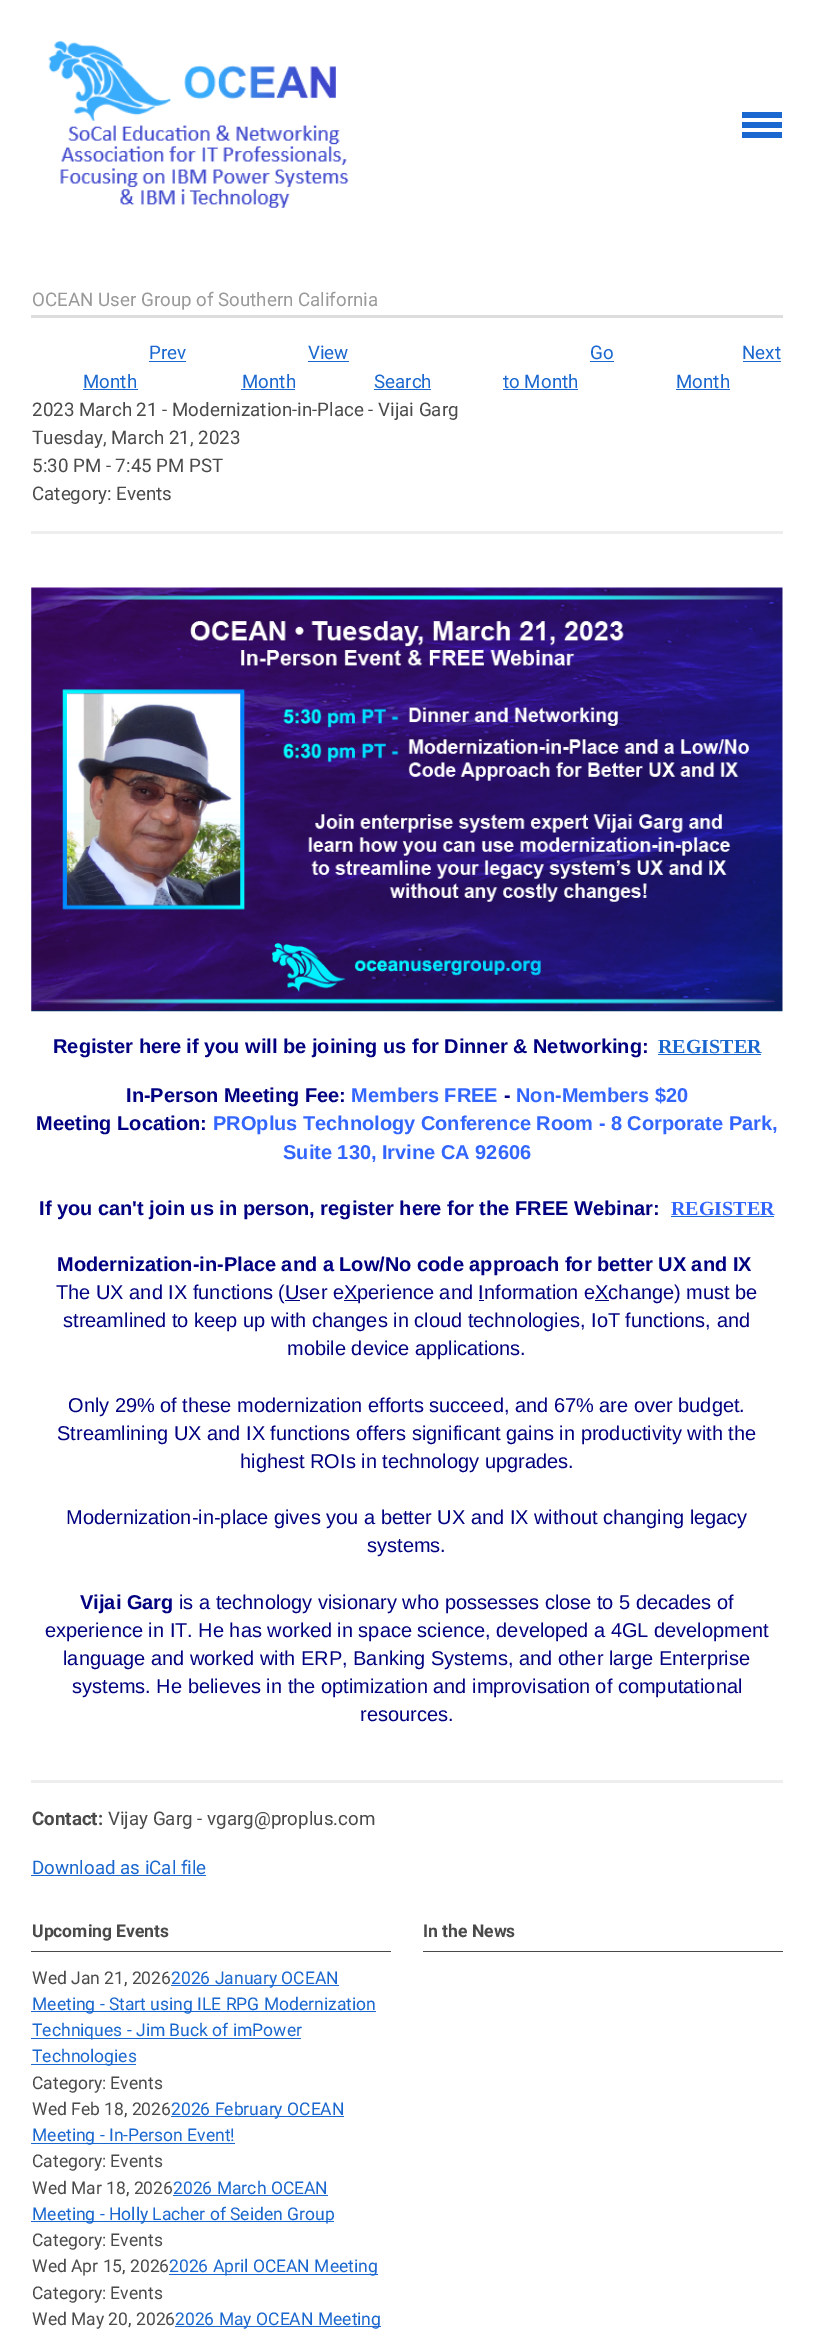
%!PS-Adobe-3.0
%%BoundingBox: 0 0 813 2338
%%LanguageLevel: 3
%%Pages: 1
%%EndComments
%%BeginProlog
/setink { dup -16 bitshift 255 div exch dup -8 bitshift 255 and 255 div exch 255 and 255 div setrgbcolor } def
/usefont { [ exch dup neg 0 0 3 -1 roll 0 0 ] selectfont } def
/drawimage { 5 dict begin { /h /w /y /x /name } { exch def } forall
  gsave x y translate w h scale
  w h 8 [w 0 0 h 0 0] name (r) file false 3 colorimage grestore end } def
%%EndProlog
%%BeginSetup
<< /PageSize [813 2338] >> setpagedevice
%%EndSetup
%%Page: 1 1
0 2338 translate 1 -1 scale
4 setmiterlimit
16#FFFFFF setink
0 0 813 2338 rectfill
(img1.raw) 48 40 301 168 drawimage
16#1A67CF setink
742 112 moveto 782 112 lineto 782 118 lineto 742 118 lineto closepath 742 122 moveto 782 122 lineto 782 128 lineto 742 128 lineto closepath 742 132 moveto 782 132 lineto 782 138 lineto 742 138 lineto closepath fill
16#DDDDDD setink
31 315 752 3 rectfill
/Roboto-Regular 18.75 usefont
16#999999 setink
32 306 moveto (OCEAN User Group of Southern California) show
16#1A67CF setink
149 359 moveto (Prev) show
149 361 37 1 rectfill
83 388 moveto (Month) show
83 389 55 1 rectfill
308 359 moveto (View) show
308 361 41 1 rectfill
242 388 moveto (Month) show
241 389 54 1 rectfill
374 388 moveto (Search) show
374 389 57 1 rectfill
590 359 moveto (Go) show
590 361 24 1 rectfill
503 388 moveto (to Month) show
503 389 75 1 rectfill
742 359 moveto (Next) show
743 361 38 1 rectfill
676 388 moveto (Month) show
676 389 54 1 rectfill
16#4A4A4A setink
[
    [(2023 March 21 - Modernization-in-Place - Vijai Garg) 32 416]
    [(Tuesday, March 21, 2023) 32 444]
    [(5:30 PM - 7:45 PM PST) 32 472]
    [(Category: Events) 32 500]
] { aload pop moveto show } forall
16#EEEEEE setink
31 531 752 3 rectfill
(img2.raw) 31 587 752 425 drawimage
/LiberationSans-Bold 20 usefont
16#000080 setink
53 1053 moveto (Register here if you will be joining us for Dinner & Networking:) show
/LiberationSerif-Bold 20 usefont
16#1A67CF setink
658 1053 moveto (REGISTER) show
658 1054 103 1 rectfill
/LiberationSans-Bold 20 usefont
16#000080 setink
126 1102 moveto (In-Person Meeting Fee:) show
16#3366FF setink
351 1102 moveto (Members FREE) show
16#000080 setink
504 1102 moveto (-) show
16#3366FF setink
516 1102 moveto (Non-Members $20) show
16#000080 setink
36 1130 moveto (Meeting Location:) show
16#3366FF setink
213 1130 moveto (PROplus Technology Conference Room - 8 Corporate Park,) show
283 1159 moveto (Suite 130, Irvine CA 92606) show
16#000080 setink
39 1215 moveto (If you can't join us in person, register here for the FREE Webinar:) show
/LiberationSerif-Bold 20 usefont
16#3366FF setink
671 1215 moveto (REGISTER) show
16#1A67CF setink
671 1216 103 1 rectfill
/LiberationSans-Bold 20 usefont
16#000080 setink
57 1271 moveto (Modernization-in-Place and a Low/No code approach for better UX and IX) show
/LiberationSans-Regular 20 usefont
56 1299 moveto (The UX and IX functions \(User eXperience and Information eXchange\) must be) show
[
    [285 1300 15 1 16#000080]
    [344 1300 14 1 16#000080]
    [479 1300 5 1 16#000080]
    [595 1300 14 1 16#000080]
] { aload pop setink rectfill } forall
[
    [(streamlined to keep up with changes in cloud technologies, IoT functions, and) 63 1327]
    [(mobile device applications.) 287 1355]
    [(Only 29% of these modernization efforts succeed, and 67% are over budget.) 68 1412]
    [(Streamlining UX and IX functions offers significant gains in productivity with the) 57 1440]
    [(highest ROIs in technology upgrades.) 240 1468]
    [(Modernization-in-place gives you a better UX and IX without changing legacy) 66 1524]
    [(systems.) 367 1552]
] { aload pop moveto show } forall
/LiberationSans-Bold 20 usefont
80 1609 moveto (Vijai Garg) show
/LiberationSans-Regular 20 usefont
[
    [(is a technology visionary who possesses close to 5 decades of) 179 1609]
    [(experience in IT. He has worked in space science, developed a 4GL development) 45 1637]
    [(language and worked with ERP, Banking Systems, and other large Enterprise) 63 1665]
    [(systems. He believes in the optimization and improvisation of computational) 72 1693]
    [(resources.) 360 1721]
] { aload pop moveto show } forall
16#EEEEEE setink
31 1780 752 3 rectfill
/Roboto-Bold 18.75 usefont
16#4A4A4A setink
32 1825 moveto (Contact:) show
/Roboto-Regular 18.75 usefont
108 1825 moveto (Vijay Garg - vgarg@proplus.com) show
16#1A67CF setink
32 1874 moveto (Download as iCal file) show
31 1875 175 1 rectfill
16#4A4A4A setink
31 1951 360 1 rectfill
/Roboto-Bold 17.5 usefont
32 1937 moveto (Upcoming Events) show
/Roboto-Regular 17.5 usefont
32 1984 moveto (Wed Jan 21, 2026) show
16#1A67CF setink
171 1985 168 1 rectfill
171 1984 moveto (2026 January OCEAN) show
31 2011 345 1 rectfill
32 2010 moveto (Meeting - Start using ILE RPG Modernization) show
31 2038 270 1 rectfill
32 2036 moveto (Techniques - Jim Buck of imPower) show
31 2064 105 1 rectfill
32 2062 moveto (Technologies) show
16#4A4A4A setink
32 2089 moveto (Category: Events) show
32 2115 moveto (Wed Feb 18, 2026) show
16#1A67CF setink
171 2116 173 1 rectfill
171 2115 moveto (2026 February OCEAN) show
31 2143 204 1 rectfill
32 2141 moveto (Meeting - In-Person Event!) show
16#4A4A4A setink
32 2167 moveto (Category: Events) show
32 2194 moveto (Wed Mar 18, 2026) show
16#1A67CF setink
173 2194 moveto (2026 March OCEAN) show
173 2195 155 1 rectfill
31 2221 303 1 rectfill
32 2220 moveto (Meeting - Holly Lacher of Seiden Group) show
16#4A4A4A setink
32 2246 moveto (Category: Events) show
32 2272 moveto (Wed Apr 15, 2026) show
16#1A67CF setink
169 2274 209 1 rectfill
169 2272 moveto (2026 April OCEAN Meeting) show
16#4A4A4A setink
32 2299 moveto (Category: Events) show
32 2325 moveto (Wed May 20, 2026) show
16#1A67CF setink
175 2326 206 1 rectfill
175 2325 moveto (2026 May OCEAN Meeting) show
16#4A4A4A setink
423 1951 360 1 rectfill
/Roboto-Bold 17.5 usefont
423 1937 moveto (In the News) show
showpage
%%EOF
